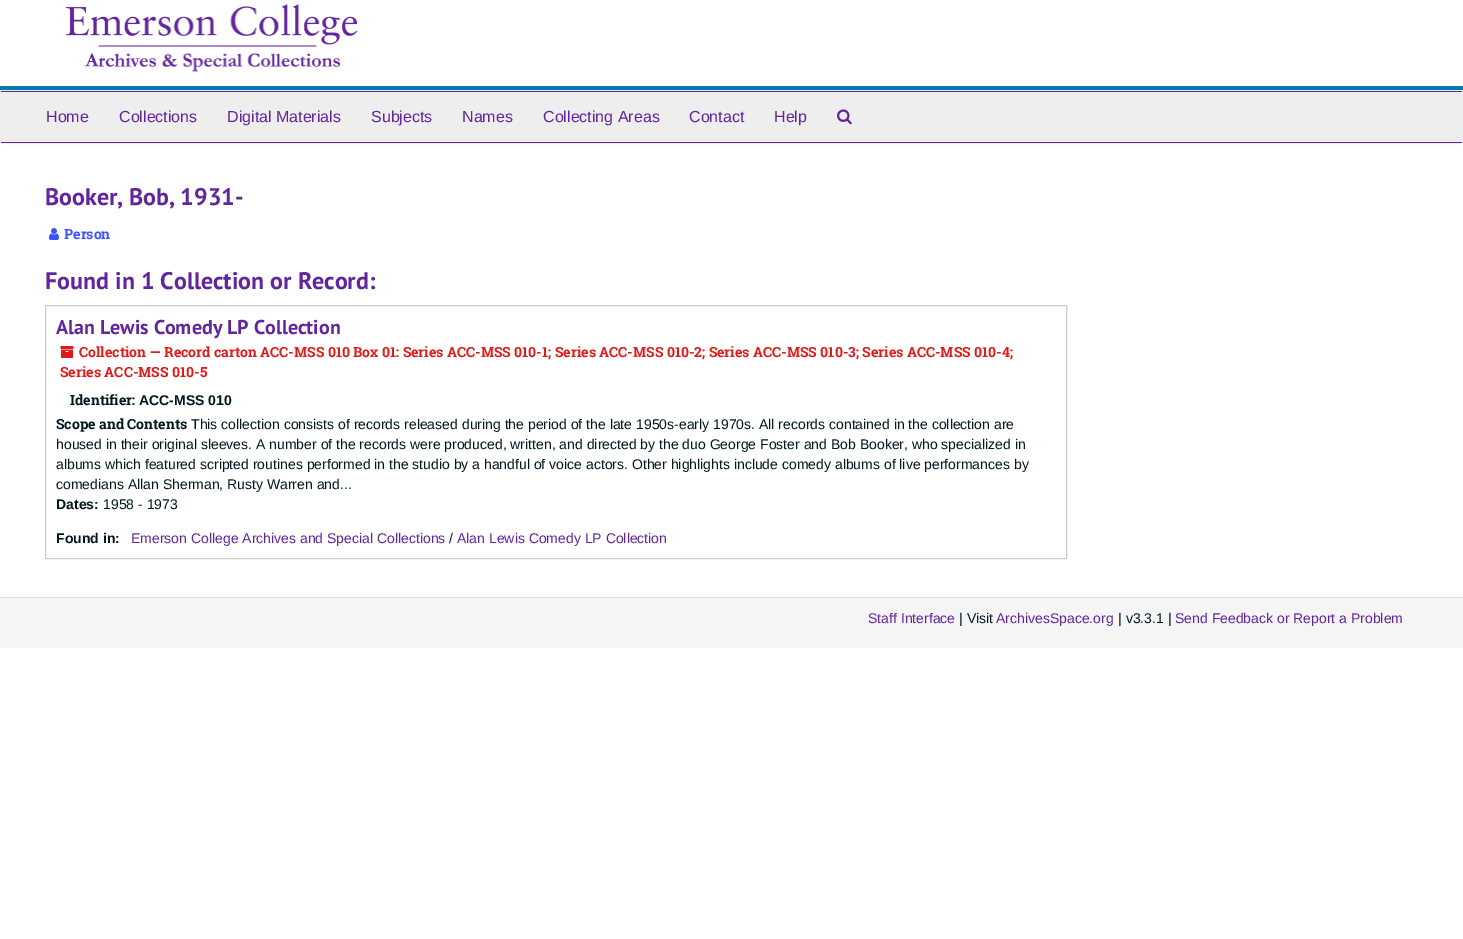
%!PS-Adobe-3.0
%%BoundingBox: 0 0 1463 939
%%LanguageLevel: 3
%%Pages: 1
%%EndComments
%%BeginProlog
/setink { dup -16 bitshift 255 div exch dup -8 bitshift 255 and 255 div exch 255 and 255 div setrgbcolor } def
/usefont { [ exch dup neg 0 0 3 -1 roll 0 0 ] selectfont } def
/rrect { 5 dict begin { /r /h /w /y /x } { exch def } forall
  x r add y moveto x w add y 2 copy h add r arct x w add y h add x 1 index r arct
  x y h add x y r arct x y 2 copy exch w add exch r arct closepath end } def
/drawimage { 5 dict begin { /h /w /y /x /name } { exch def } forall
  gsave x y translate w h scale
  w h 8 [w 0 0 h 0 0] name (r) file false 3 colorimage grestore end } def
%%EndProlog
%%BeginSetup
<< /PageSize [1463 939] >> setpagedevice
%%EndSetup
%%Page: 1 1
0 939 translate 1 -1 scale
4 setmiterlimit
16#FFFFFF setink
0 0 1463 939 rectfill
16#007CAD setink
0 86 1463 4 rectfill
(img1.raw) 66 4 292 68 drawimage
16#EEEEEE setink
0.5 90.5 1462 53 3.5 rrect gsave fill grestore
stroke
16#62259D setink
1 91 1461 1 rectfill
1 142 1461 1 rectfill
/LiberationSans-Regular 16 usefont
[
    [(Home) 46 122]
    [(Collections) 119 122]
    [(Digital Materials) 227 122]
    [(Subjects) 371 122]
    [(Names) 462 122]
    [(Collecting Areas) 543 122]
    [(Contact) 689 122]
    [(Help) 774 122]
] { aload pop moveto show } forall
(img2.raw) 837 109 15 16 drawimage
/PTSans-Bold 24 usefont
45 205 moveto (Booker, Bob, 1931-) show
(img3.raw) 49 228 10 12 drawimage
/RobotoSlab-Bold 14 usefont
16#3B52FF setink
64 239 moveto (Person) show
/PTSans-Bold 24 usefont
16#62259D setink
45 289 moveto (Found in 1 Collection or Record:) show
16#CCCCCC setink
45.5 305.5 1021 253 rectstroke
/PTSans-Bold 20 usefont
16#62259D setink
56 334 moveto (Alan Lewis Comedy LP Collection) show
(img4.raw) 60 346 14 12 drawimage
/RobotoSlab-Bold 14 usefont
16#E01919 setink
79 357 moveto (Collection — Record carton ACC-MSS 010 Box 01: Series ACC-MSS 010-1; Series ACC-MSS 010-2; Series ACC-MSS 010-3; Series ACC-MSS 010-4;) show
60 377 moveto (Series ACC-MSS 010-5) show
16#00171F setink
70 405 moveto (Identifier:) show
/LiberationSans-Bold 14 usefont
139 405 moveto (ACC-MSS 010) show
/RobotoSlab-Bold 14 usefont
56 429 moveto (Scope and Contents) show
/LiberationSans-Regular 14 usefont
[
    [(This collection consists of records released during the period of the late 1950s-early 1970s. All records contained in the collection are) 191 429]
    [(housed in their original sleeves. A number of the records were produced, written, and directed by the duo George Foster and Bob Booker, who specialized in) 56 449]
    [(albums which featured scripted routines performed in the studio by a handful of voice actors. Other highlights include comedy albums of live performances by) 56 469]
    [(comedians Allan Sherman, Rusty Warren and...) 56 489]
] { aload pop moveto show } forall
/LiberationSans-Bold 14 usefont
56 509 moveto (Dates:) show
/LiberationSans-Regular 14 usefont
103 509 moveto (1958 - 1973) show
/LiberationSans-Bold 14 usefont
56 543 moveto (Found in:) show
/LiberationSans-Regular 14 usefont
16#62259D setink
131 543 moveto (Emerson College Archives and Special Collections) show
16#00171F setink
449 543 moveto (/) show
16#62259D setink
457 543 moveto (Alan Lewis Comedy LP Collection) show
16#F5F5F5 setink
0 597 moveto 1463 597 lineto 1463 645 lineto 1463 646.5 1461.5 648 1460 648 curveto 3 648 lineto 1.5 648 0 646.5 0 645 curveto closepath fill
16#DDDDDD setink
0 597 1463 1 rectfill
16#62259D setink
868 623 moveto (Staff Interface) show
16#00171F setink
959 623 moveto (| Visit) show
16#62259D setink
996 623 moveto (ArchivesSpace.org) show
16#00171F setink
1118 623 moveto (| v3.3.1 |) show
16#62259D setink
1175 623 moveto (Send Feedback or Report a Problem) show
showpage
%%EOF
